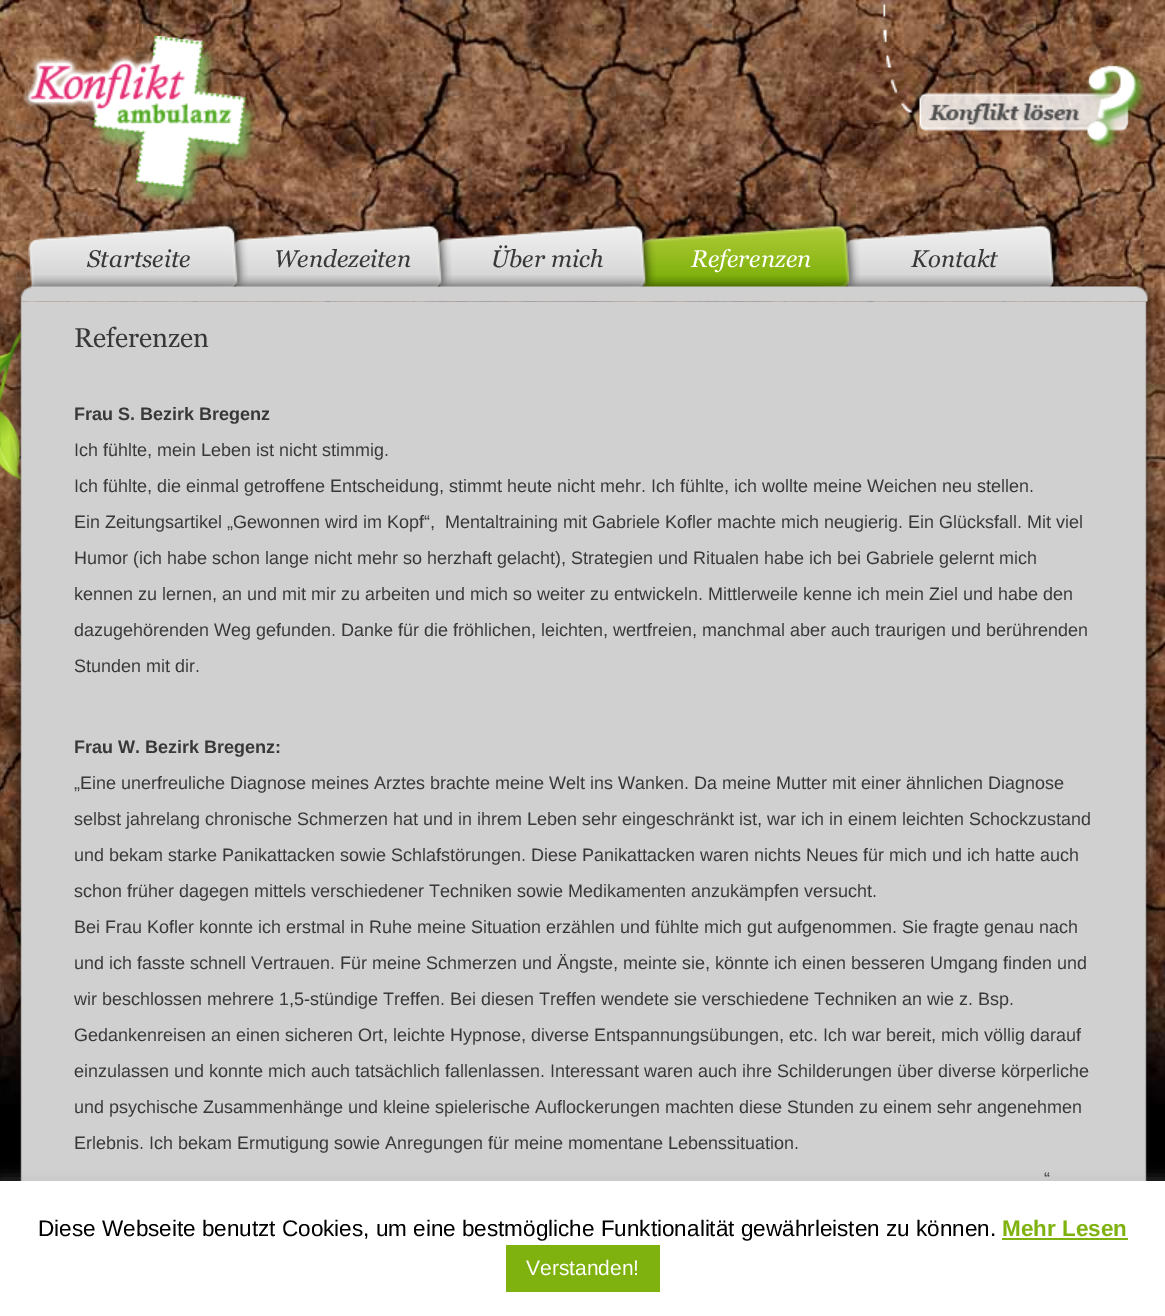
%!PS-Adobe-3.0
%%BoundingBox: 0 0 1165 1316
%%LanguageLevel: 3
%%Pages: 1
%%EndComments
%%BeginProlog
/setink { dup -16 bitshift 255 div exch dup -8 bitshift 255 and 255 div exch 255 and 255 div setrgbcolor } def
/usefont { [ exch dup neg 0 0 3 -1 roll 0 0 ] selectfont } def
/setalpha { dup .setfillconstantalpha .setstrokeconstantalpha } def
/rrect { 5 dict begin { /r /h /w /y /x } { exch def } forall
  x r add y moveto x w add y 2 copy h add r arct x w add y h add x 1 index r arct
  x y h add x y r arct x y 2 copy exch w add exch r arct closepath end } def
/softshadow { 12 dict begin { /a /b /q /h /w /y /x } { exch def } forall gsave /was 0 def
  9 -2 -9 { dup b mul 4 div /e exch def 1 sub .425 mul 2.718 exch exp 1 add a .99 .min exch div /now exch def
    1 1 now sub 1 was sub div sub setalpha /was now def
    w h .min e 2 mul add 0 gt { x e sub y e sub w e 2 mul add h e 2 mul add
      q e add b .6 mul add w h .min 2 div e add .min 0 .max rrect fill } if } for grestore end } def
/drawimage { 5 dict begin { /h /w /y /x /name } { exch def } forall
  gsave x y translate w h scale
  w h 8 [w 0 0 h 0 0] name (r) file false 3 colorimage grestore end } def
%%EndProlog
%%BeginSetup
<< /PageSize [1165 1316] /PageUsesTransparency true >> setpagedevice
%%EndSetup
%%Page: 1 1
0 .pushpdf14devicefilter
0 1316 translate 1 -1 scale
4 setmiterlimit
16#000000 setink
0 0 1165 1316 rectfill
(img1.raw) 0 0 1165 1104 drawimage
(img2.raw) 22 36 236 170 drawimage
(img3.raw) 883 4 262 146 drawimage
(img4.raw) 28 216 218 72 drawimage
/Georgia-Italic 24 usefont
16#383838 setink
87 267 moveto (Startseite) show
(img6.raw) 233 215 217 72 drawimage
(img5.raw) 228 216 20 71 drawimage
274 267 moveto (Wendezeiten) show
(img8.raw) 437 215 217 72 drawimage
(img7.raw) 432 217 20 70 drawimage
491 267 moveto (Über mich) show
(img10.raw) 641 215 217 72 drawimage
(img9.raw) 636 216 20 71 drawimage
16#FFFFFF setink
691 267 moveto (Referenzen) show
(img12.raw) 845 215 218 72 drawimage
(img11.raw) 840 216 20 71 drawimage
16#383838 setink
911 267 moveto (Kontakt) show
(img13.raw) 1044 218 19 69 drawimage
(img14.raw) 0 330 21 151 drawimage
(img15.raw) 11 275 1146 27 drawimage
(img16.raw) 10 301 1147 880 drawimage
/Georgia-Regular 27 usefont
74 347 moveto (Referenzen) show
/LiberationSans-Bold 18 usefont
74 420 moveto (Frau S. Bezirk Bregenz) show
/LiberationSans-Regular 18 usefont
[
    [(Ich fühlte, mein Leben ist nicht stimmig.) 74 456]
    [(Ich fühlte, die einmal getroffene Entscheidung, stimmt heute nicht mehr. Ich fühlte, ich wollte meine Weichen neu stellen.) 74 492]
    [(Ein Zeitungsartikel „Gewonnen wird im Kopf“,  Mentaltraining mit Gabriele Kofler machte mich neugierig. Ein Glücksfall. Mit viel) 74 528]
    [(Humor \(ich habe schon lange nicht mehr so herzhaft gelacht\), Strategien und Ritualen habe ich bei Gabriele gelernt mich) 74 564]
    [(kennen zu lernen, an und mit mir zu arbeiten und mich so weiter zu entwickeln. Mittlerweile kenne ich mein Ziel und habe den) 74 600]
    [(dazugehörenden Weg gefunden. Danke für die fröhlichen, leichten, wertfreien, manchmal aber auch traurigen und berührenden) 74 636]
    [(Stunden mit dir.) 74 672]
] { aload pop moveto show } forall
/LiberationSans-Bold 18 usefont
74 753 moveto (Frau W. Bezirk Bregenz:) show
/LiberationSans-Regular 18 usefont
[
    [(„Eine unerfreuliche Diagnose meines Arztes brachte meine Welt ins Wanken. Da meine Mutter mit einer ähnlichen Diagnose) 74 789]
    [(selbst jahrelang chronische Schmerzen hat und in ihrem Leben sehr eingeschränkt ist, war ich in einem leichten Schockzustand) 74 825]
    [(und bekam starke Panikattacken sowie Schlafstörungen. Diese Panikattacken waren nichts Neues für mich und ich hatte auch) 74 861]
    [(schon früher dagegen mittels verschiedener Techniken sowie Medikamenten anzukämpfen versucht.) 74 897]
    [(Bei Frau Kofler konnte ich erstmal in Ruhe meine Situation erzählen und fühlte mich gut aufgenommen. Sie fragte genau nach) 74 933]
    [(und ich fasste schnell Vertrauen. Für meine Schmerzen und Ängste, meinte sie, könnte ich einen besseren Umgang finden und) 74 969]
    [(wir beschlossen mehrere 1,5-stündige Treffen. Bei diesen Treffen wendete sie verschiedene Techniken an wie z. Bsp.) 74 1005]
    [(Gedankenreisen an einen sicheren Ort, leichte Hypnose, diverse Entspannungsübungen, etc. Ich war bereit, mich völlig darauf) 74 1041]
    [(einzulassen und konnte mich auch tatsächlich fallenlassen. Interessant waren auch ihre Schilderungen über diverse körperliche) 74 1077]
    [(und psychische Zusammenhänge und kleine spielerische Auflockerungen machten diese Stunden zu einem sehr angenehmen) 74 1113]
    [(Erlebnis. Ich bekam Ermutigung sowie Anregungen für meine momentane Lebenssituation.) 74 1149]
    [(“) 1044 1185]
] { aload pop moveto show } forall
16#ACABAB setink
0 1179 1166 137 0 7.5 0.3 softshadow
16#FFFFFF setink
0 1181 1165 135 rectfill
/LiberationSans-Regular 22.5 usefont
16#000000 setink
38 1236 moveto (Diese Webseite benutzt Cookies, um eine bestmögliche Funktionalität gewährleisten zu können.) show
/LiberationSans-Bold 22.5 usefont
16#7FB20F setink
1002 1236 moveto (Mehr Lesen) show
1002 1238 126 2 rectfill
506 1245 154 47 rectfill
/LiberationSans-Regular 21 usefont
16#FFFFFF setink
526 1275 moveto (Verstanden!) show
.poppdf14devicefilter showpage
%%EOF
